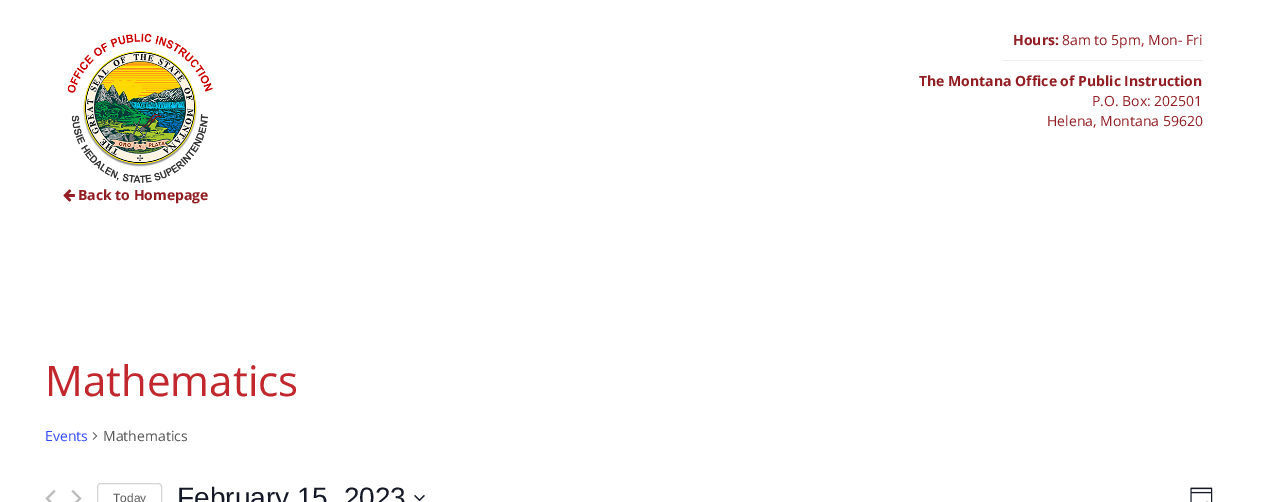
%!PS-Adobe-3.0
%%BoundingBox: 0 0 1265 502
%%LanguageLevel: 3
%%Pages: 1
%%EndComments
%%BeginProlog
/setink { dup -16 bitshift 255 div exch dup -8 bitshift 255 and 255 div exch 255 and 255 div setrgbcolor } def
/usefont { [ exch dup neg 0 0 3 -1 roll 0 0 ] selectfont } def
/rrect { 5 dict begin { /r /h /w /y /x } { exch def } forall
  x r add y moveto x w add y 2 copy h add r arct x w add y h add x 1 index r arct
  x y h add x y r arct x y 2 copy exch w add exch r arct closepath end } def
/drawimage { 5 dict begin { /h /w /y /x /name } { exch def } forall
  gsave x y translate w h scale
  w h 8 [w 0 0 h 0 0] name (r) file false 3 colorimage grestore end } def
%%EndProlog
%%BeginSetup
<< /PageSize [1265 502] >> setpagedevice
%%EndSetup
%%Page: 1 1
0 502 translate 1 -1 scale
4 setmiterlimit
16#FFFFFF setink
0 0 1265 502 rectfill
/OpenSans-Bold 14 usefont
16#921D22 setink
1013 45 moveto (Hours:) show
/OpenSans-Regular 14 usefont
1062 45 moveto (8am to 5pm, Mon- Fri) show
16#EEEEEE setink
1003 60 200 1 rectfill
/OpenSans-Bold 14 usefont
16#921D22 setink
919 86 moveto (The Montana Office of Public Instruction) show
/OpenSans-Regular 14 usefont
1092 106 moveto (P.O. Box: 202501) show
1047 126 moveto (Helena, Montana 59620) show
(img1.raw) 67 33 146 150 drawimage
(img2.raw) 63 189 12 13 drawimage
/OpenSans-Bold 14 usefont
78 200 moveto (Back to Homepage) show
/OpenSans-Regular 42 usefont
16#C1272D setink
45 396 moveto (Mathematics) show
/OpenSans-Regular 14 usefont
16#334AFF setink
45 441 moveto (Events) show
(img3.raw) 92 432 6 8 drawimage
16#555555 setink
103 441 moveto (Mathematics) show
(img4.raw) 45 490 11 12 drawimage
(img5.raw) 71 490 11 12 drawimage
16#D5D5D5 setink
97.5 483.5 64 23 3.5 rrect stroke
/LiberationSans-Regular 12 usefont
16#5D5D5D setink
113 502 moveto (Today) show
/LiberationSans-Regular 28 usefont
16#141827 setink
177 507 moveto (February 15, 2023) show
(img6.raw) 414 494 11 8 drawimage
(img7.raw) 1190 487 23 15 drawimage
showpage
%%EOF
